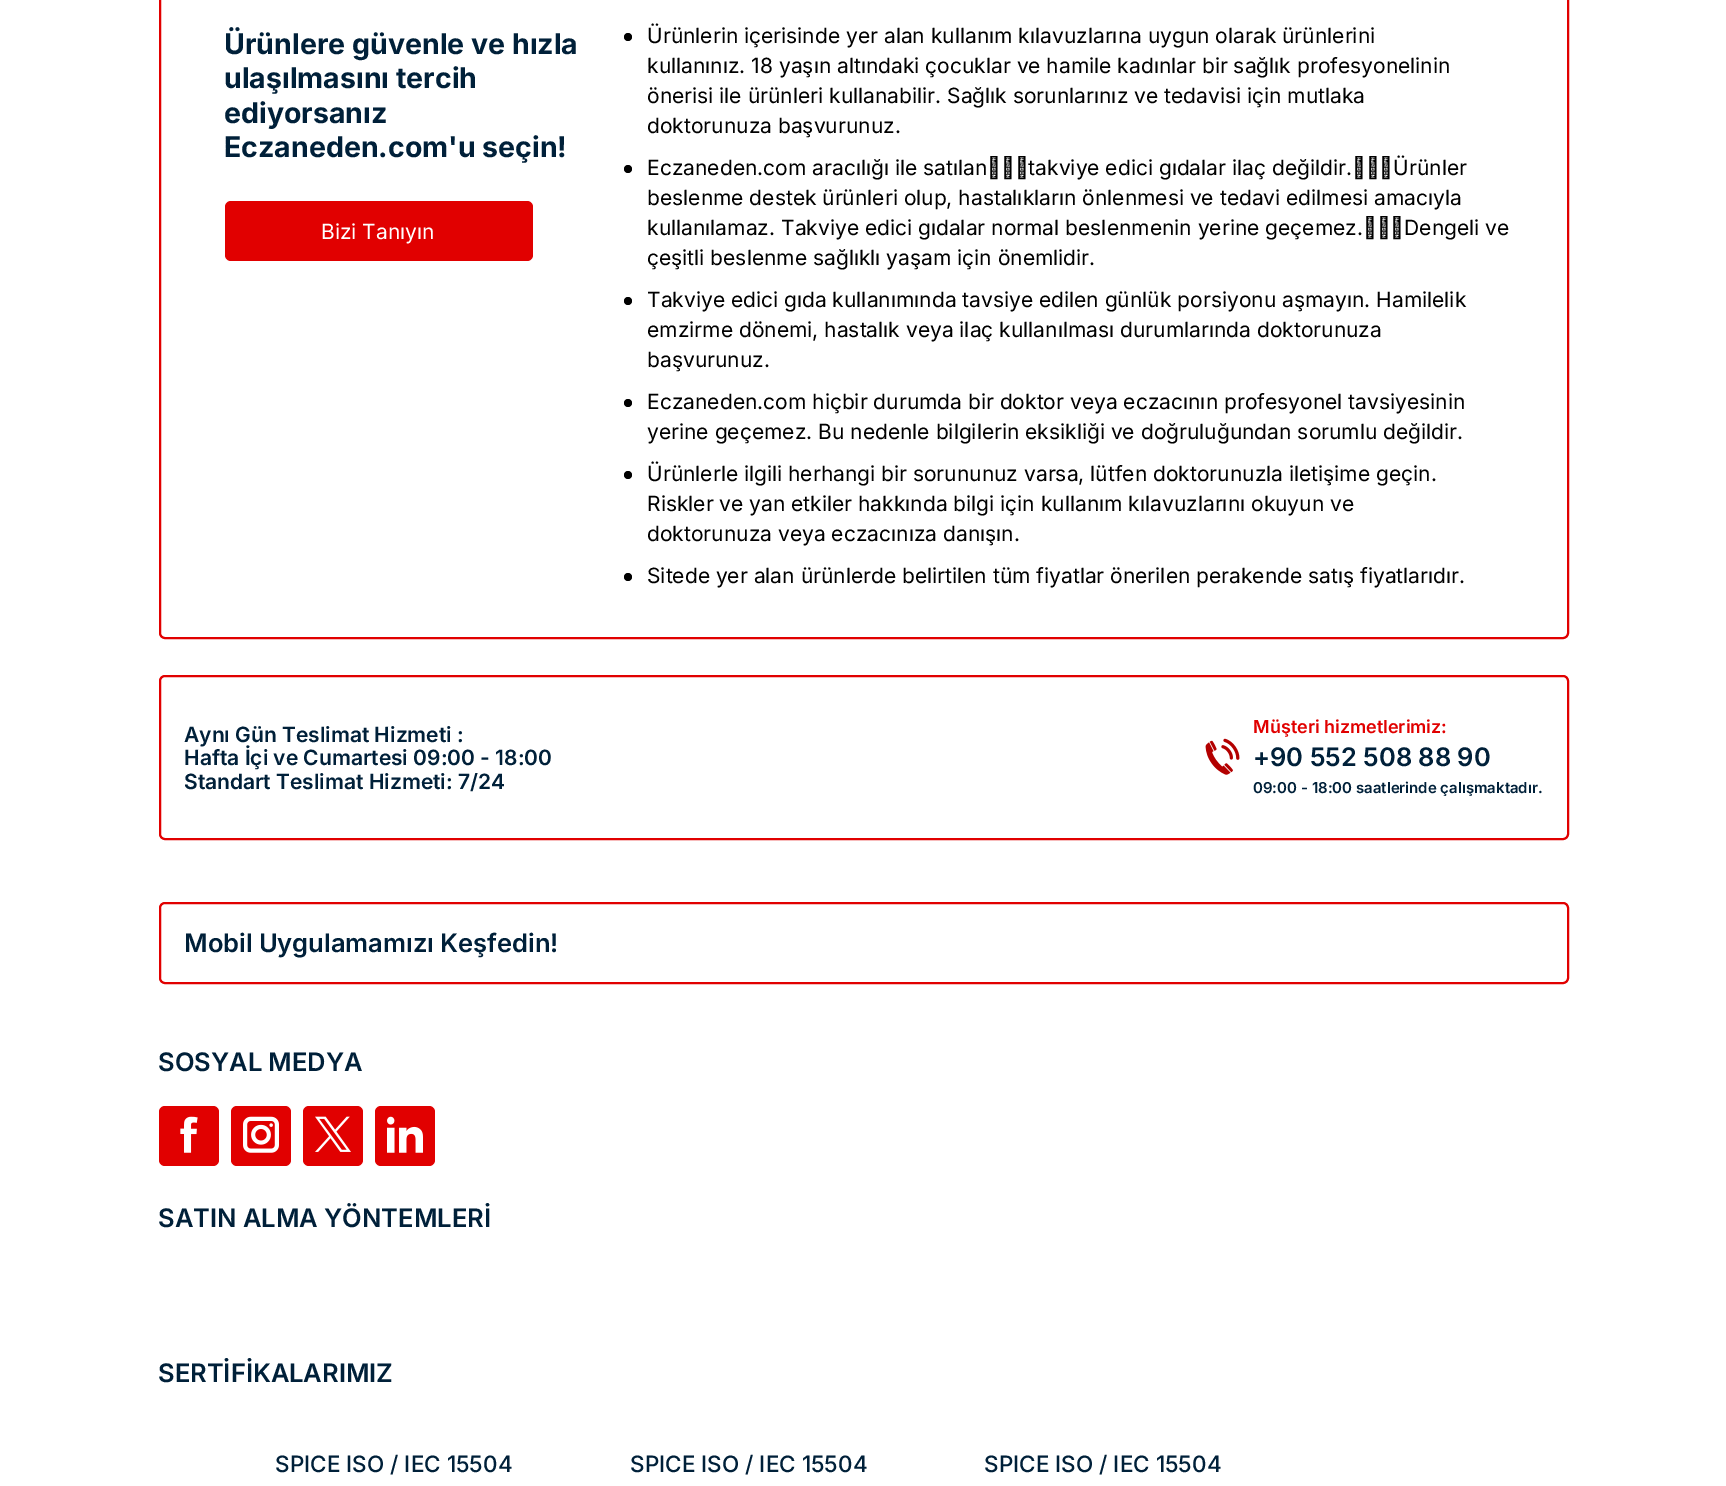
%!PS-Adobe-3.0
%%BoundingBox: 0 0 1726 1486
%%LanguageLevel: 3
%%Pages: 1
%%EndComments
%%BeginProlog
/setink { dup -16 bitshift 255 div exch dup -8 bitshift 255 and 255 div exch 255 and 255 div setrgbcolor } def
/usefont { [ exch dup neg 0 0 3 -1 roll 0 0 ] selectfont } def
/disc { newpath 0 360 arc closepath } def
/rrect { 5 dict begin { /r /h /w /y /x } { exch def } forall
  x r add y moveto x w add y 2 copy h add r arct x w add y h add x 1 index r arct
  x y h add x y r arct x y 2 copy exch w add exch r arct closepath end } def
/drawimage { 5 dict begin { /h /w /y /x /name } { exch def } forall
  gsave x y translate w h scale
  w h 8 [w 0 0 h 0 0] name (r) file false 3 colorimage grestore end } def
%%EndProlog
%%BeginSetup
<< /PageSize [1726 1486] >> setpagedevice
%%EndSetup
%%Page: 1 1
0 1486 translate 1 -1 scale
4 setmiterlimit
16#FFFFFF setink
0 0 1726 1486 rectfill
16#E10000 setink
2 setlinewidth
160 -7 1408 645 5 rrect stroke
/Inter-Bold 28.5 usefont
16#002039 setink
[
    [(Ürünlere güvenle ve hızla) 224 54]
    [(ulaşılmasını tercih) 224 88]
    [(ediyorsanız) 224 123]
    [(Eczaneden.com'u seçin!) 224 157]
] { aload pop moveto show } forall
16#E10000 setink
225 201 308 60 6 rrect fill
/Inter-Regular 21 usefont
16#FFFFFF setink
321 239 moveto (Bizi Tanıyın) show
16#000000 setink
628 37 4 disc fill
[
    [(Ürünlerin içerisinde yer alan kullanım kılavuzlarına uygun olarak ürünlerini) 647 43]
    [(kullanınız. 18 yaşın altındaki çocuklar ve hamile kadınlar bir sağlık profesyonelinin) 647 73]
    [(önerisi ile ürünleri kullanabilir. Sağlık sorunlarınız ve tedavisi için mutlaka) 647 103]
    [(doktorunuza başvurunuz.) 647 133]
] { aload pop moveto show } forall
628 169 4 disc fill
[
    [(Eczaneden.com aracılığı ile satılan takviye edici gıdalar ilaç değildir. Ürünler) 647 175]
    [(beslenme destek ürünleri olup, hastalıkların önlenmesi ve tedavi edilmesi amacıyla) 647 205]
    [(kullanılamaz. Takviye edici gıdalar normal beslenmenin yerine geçemez. Dengeli ve) 647 235]
    [(çeşitli beslenme sağlıklı yaşam için önemlidir.) 647 265]
] { aload pop moveto show } forall
628 301 4 disc fill
[
    [(Takviye edici gıda kullanımında tavsiye edilen günlük porsiyonu aşmayın. Hamilelik) 647 307]
    [(emzirme dönemi, hastalık veya ilaç kullanılması durumlarında doktorunuza) 647 337]
    [(başvurunuz.) 647 367]
] { aload pop moveto show } forall
628 403 4 disc fill
647 409 moveto (Eczaneden.com hiçbir durumda bir doktor veya eczacının profesyonel tavsiyesinin) show
647 439 moveto (yerine geçemez. Bu nedenle bilgilerin eksikliği ve doğruluğundan sorumlu değildir.) show
628 475 4 disc fill
[
    [(Ürünlerle ilgili herhangi bir sorununuz varsa, lütfen doktorunuzla iletişime geçin.) 647 481]
    [(Riskler ve yan etkiler hakkında bilgi için kullanım kılavuzlarını okuyun ve) 647 511]
    [(doktorunuza veya eczacınıza danışın.) 647 541]
] { aload pop moveto show } forall
628 577 4 disc fill
647 583 moveto (Sitede yer alan ürünlerde belirtilen tüm fiyatlar önerilen perakende satış fiyatlarıdır.) show
16#E10000 setink
160 676 1408 163 5 rrect stroke
/Inter-SemiBold 21 usefont
16#002039 setink
[
    [(Aynı Gün Teslimat Hizmeti :) 184 742]
    [(Hafta İçi ve Cumartesi 09:00 - 18:00) 184 765]
    [(Standart Teslimat Hizmeti: 7/24) 184 789]
] { aload pop moveto show } forall
(img1.raw) 1205 738 35 37 drawimage
/Inter-SemiBold 18 usefont
16#E10000 setink
1253 733 moveto (Müşteri hizmetlerimiz:) show
/Inter-SemiBold 25.5 usefont
16#002039 setink
1253 766 moveto (+90 552 508 88 90) show
/Inter-SemiBold 15 usefont
1253 793 moveto (09:00 - 18:00 saatlerinde çalışmaktadır.) show
16#E10000 setink
160 903 1408 80 5 rrect stroke
/Inter-SemiBold 25.5 usefont
16#002039 setink
184 952 moveto (Mobil Uygulamamızı Keşfedin!) show
158 1071 moveto (SOSYAL MEDYA) show
16#E10000 setink
159 1106 60 60 6 rrect fill
(img2.raw) 180 1116 18 37 drawimage
231 1106 60 60 6 rrect fill
(img3.raw) 243 1116 36 37 drawimage
303 1106 60 60 6 rrect fill
(img4.raw) 315 1116 36 36 drawimage
375 1106 60 60 6 rrect fill
(img5.raw) 387 1116 36 37 drawimage
16#002039 setink
158 1227 moveto (SATIN ALMA YÖNTEMLERİ) show
158 1382 moveto (SERTİFİKALARIMIZ) show
/Inter-Medium 22.5 usefont
[
    [(SPICE ISO / IEC 15504) 275 1472]
    [(SPICE ISO / IEC 15504) 630 1472]
    [(SPICE ISO / IEC 15504) 984 1472]
] { aload pop moveto show } forall
showpage
%%EOF
